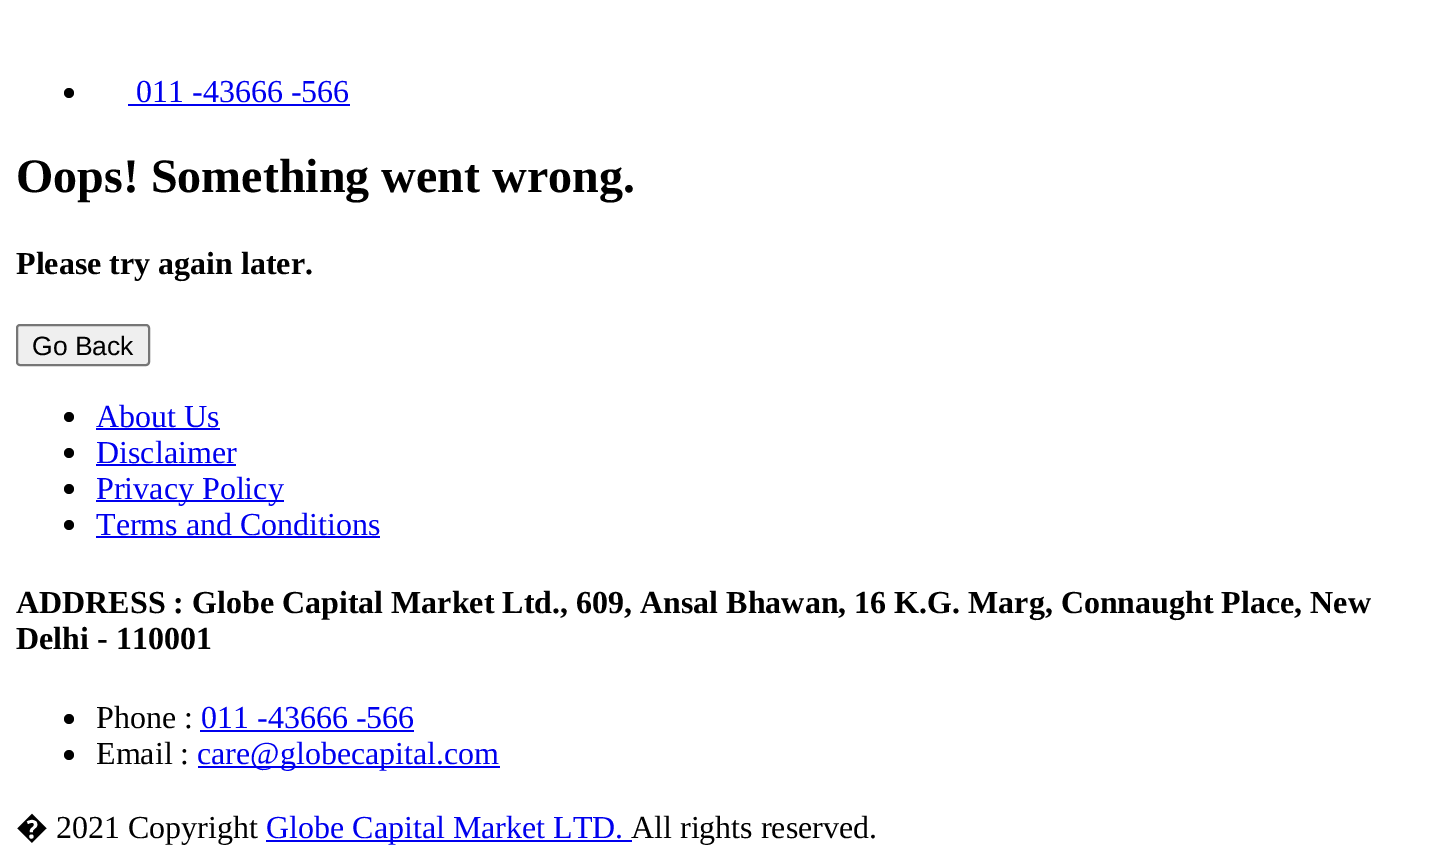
%!PS-Adobe-3.0
%%BoundingBox: 0 0 1442 847
%%LanguageLevel: 3
%%Pages: 1
%%EndComments
%%BeginProlog
/setink { dup -16 bitshift 255 div exch dup -8 bitshift 255 and 255 div exch 255 and 255 div setrgbcolor } def
/usefont { [ exch dup neg 0 0 3 -1 roll 0 0 ] selectfont } def
/disc { newpath 0 360 arc closepath } def
/rrect { 5 dict begin { /r /h /w /y /x } { exch def } forall
  x r add y moveto x w add y 2 copy h add r arct x w add y h add x 1 index r arct
  x y h add x y r arct x y 2 copy exch w add exch r arct closepath end } def
%%EndProlog
%%BeginSetup
<< /PageSize [1442 847] >> setpagedevice
%%EndSetup
%%Page: 1 1
0 847 translate 1 -1 scale
4 setmiterlimit
16#FFFFFF setink
0 0 1442 847 rectfill
16#000000 setink
69 93 5 disc fill
/LiberationSerif-Regular 32 usefont
16#0000EE setink
136 102 moveto (011 -43666 -566) show
128 104 222 2 rectfill
/LiberationSerif-Bold 48 usefont
16#000000 setink
16 192 moveto (Oops! Something went wrong.) show
/LiberationSerif-Bold 32 usefont
16 274 moveto (Please try again later.) show
16#EFEFEF setink
17 325 132 40 3 rrect gsave fill grestore
16#767676 setink
2 setlinewidth
stroke
/LiberationSans-Regular 26.5 usefont
16#000000 setink
32 355 moveto (Go Back) show
69 417 5 disc fill
/LiberationSerif-Regular 32 usefont
16#0000EE setink
96 427 moveto (About Us) show
96 428 124 2 rectfill
16#000000 setink
69 453 5 disc fill
16#0000EE setink
96 463 moveto (Disclaimer) show
96 464 140 2 rectfill
16#000000 setink
69 489 5 disc fill
16#0000EE setink
96 500 188 2 rectfill
96 499 moveto (Privacy Policy) show
16#000000 setink
69 525 5 disc fill
16#0000EE setink
96 535 moveto (Terms and Conditions) show
96 536 284 2 rectfill
/LiberationSerif-Bold 32 usefont
16#000000 setink
16 613 moveto (ADDRESS : Globe Capital Market Ltd., 609, Ansal Bhawan, 16 K.G. Marg, Connaught Place, New) show
16 649 moveto (Delhi - 110001) show
69 719 5 disc fill
/LiberationSerif-Regular 32 usefont
96 728 moveto (Phone :) show
16#0000EE setink
201 728 moveto (011 -43666 -566) show
200 730 214 2 rectfill
16#000000 setink
69 755 5 disc fill
96 764 moveto (Email :) show
16#0000EE setink
198 766 302 2 rectfill
197 764 moveto (care@globecapital.com) show
/NotoSans-Regular 32 usefont
16#000000 setink
16 838 moveto (�) show
/LiberationSerif-Regular 32 usefont
56 838 moveto (2021 Copyright) show
16#0000EE setink
266 840 366 2 rectfill
266 838 moveto (Globe Capital Market LTD.) show
16#000000 setink
631 838 moveto (All rights reserved.) show
showpage
%%EOF
